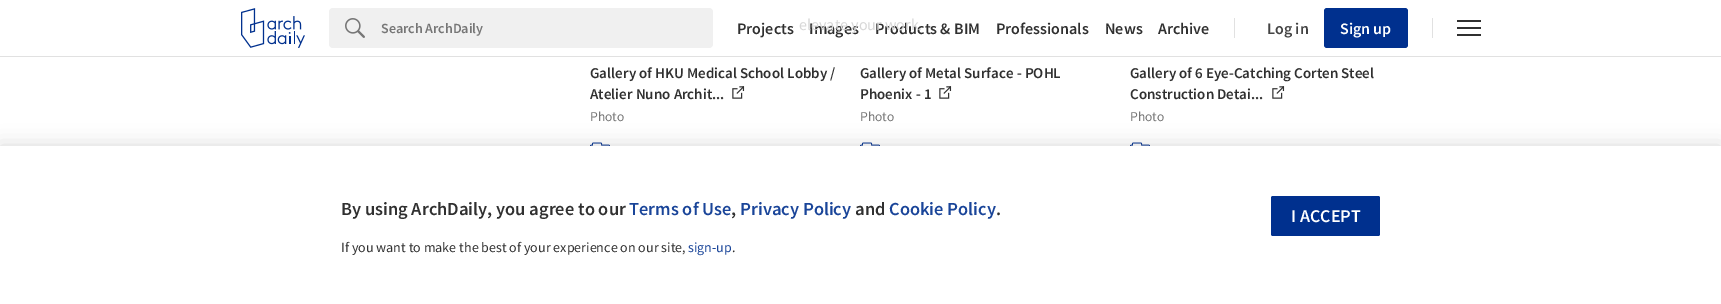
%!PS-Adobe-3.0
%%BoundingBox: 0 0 1721 304
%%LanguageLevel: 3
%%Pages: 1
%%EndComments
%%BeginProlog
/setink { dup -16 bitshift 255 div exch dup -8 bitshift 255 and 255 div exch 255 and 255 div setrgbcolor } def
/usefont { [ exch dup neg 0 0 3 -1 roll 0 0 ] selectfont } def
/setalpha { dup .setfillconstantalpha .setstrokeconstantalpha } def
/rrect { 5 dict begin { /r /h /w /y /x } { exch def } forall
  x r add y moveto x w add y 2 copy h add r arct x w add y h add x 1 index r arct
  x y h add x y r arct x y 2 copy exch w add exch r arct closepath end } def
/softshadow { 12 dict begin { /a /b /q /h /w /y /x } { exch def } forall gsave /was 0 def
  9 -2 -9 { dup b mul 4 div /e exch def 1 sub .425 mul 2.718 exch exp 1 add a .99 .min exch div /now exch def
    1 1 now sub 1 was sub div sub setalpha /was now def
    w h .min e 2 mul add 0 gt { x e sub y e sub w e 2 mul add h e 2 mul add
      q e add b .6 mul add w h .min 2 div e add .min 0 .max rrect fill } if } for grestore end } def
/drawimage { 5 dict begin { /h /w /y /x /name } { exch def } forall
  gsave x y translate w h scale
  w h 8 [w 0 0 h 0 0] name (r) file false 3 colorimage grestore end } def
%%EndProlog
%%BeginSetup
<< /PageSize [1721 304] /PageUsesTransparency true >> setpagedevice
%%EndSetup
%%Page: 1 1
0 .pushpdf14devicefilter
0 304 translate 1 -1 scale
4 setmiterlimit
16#FFFFFF setink
0 0 1721 304 rectfill
/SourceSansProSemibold-SemiBold 16 usefont
16#303030 setink
809 34 moveto (Images) show
875 34 moveto (Products & BIM) show
/SourceSansPro-Regular 16 usefont
16#D7D7D7 setink
799 30 moveto (elevate your work.) show
16#E1E1E1 setink
0 56 1721 1 rectfill
(img1.raw) 241 8 64 40 drawimage
16#F0F0F0 setink
329 8 384 40 4 rrect fill
(img2.raw) 345 18 20 20 drawimage
/SourceSansProSemibold-SemiBold 14 usefont
16#767676 setink
381 33 moveto (Search ArchDaily) show
/SourceSansProSemibold-SemiBold 16 usefont
16#303030 setink
[
    [(Projects) 737 34]
    [(Professionals) 996 34]
    [(News) 1105 34]
    [(Archive) 1158 34]
] { aload pop moveto show } forall
16#E1E1E1 setink
1234 18 1 20 rectfill
16#444444 setink
1267 34 moveto (Log in) show
16#00308E setink
1324 8 84 40 3 rrect fill
16#FFFFFF setink
1340 34 moveto (Sign up) show
[
    [1432 18 1 20 16#E1E1E1]
    [1457 27 24 2 16#303030]
    [1457 20 24 2 16#303030]
    [1457 34 24 2 16#303030]
] { aload pop setink rectfill } forall
(img4.raw) 590 142 20 4 drawimage
(img4.raw) 860 142 20 4 drawimage
(img4.raw) 1130 142 20 4 drawimage
16#000000 setink
0 146 1721 158 0 10 0.15 softshadow
16#FFFFFF setink
0 146 1721 158 rectfill
/SourceSansProSemibold-SemiBold 18.4 usefont
16#303030 setink
341 215 moveto (By using ArchDaily, you agree to our) show
16#1A4599 setink
629 215 moveto (Terms of Use) show
16#303030 setink
731 215 moveto (,) show
16#1A4599 setink
740 215 moveto (Privacy Policy) show
16#303030 setink
855 215 moveto (and) show
16#1A4599 setink
889 215 moveto (Cookie Policy) show
16#303030 setink
996 215 moveto (.) show
/SourceSansPro-Regular 14 usefont
341 252 moveto (If you want to make the best of your experience on our site,) show
16#1A4599 setink
688 252 moveto (sign-up) show
16#303030 setink
732 252 moveto (.) show
16#00308E setink
1271 196 109 40 2 rrect fill
/SourceSansProSemibold-SemiBold 18 usefont
16#FFFFFF setink
1291 222 moveto (I ACCEPT) show
/SourceSansProSemibold-SemiBold 15 usefont
16#303030 setink
590 78 moveto (Gallery of HKU Medical School Lobby /) show
590 99 moveto (Atelier Nuno Archit...) show
(img3.raw) 732 86 13 13 drawimage
/SourceSansPro-Regular 13.5 usefont
16#767676 setink
590 121 moveto (Photo) show
/SourceSansProSemibold-SemiBold 15 usefont
16#303030 setink
860 78 moveto (Gallery of Metal Surface - POHL) show
860 99 moveto (Phoenix - 1) show
(img3.raw) 939 86 13 13 drawimage
/SourceSansPro-Regular 13.5 usefont
16#767676 setink
860 121 moveto (Photo) show
/SourceSansProSemibold-SemiBold 15 usefont
16#303030 setink
1130 78 moveto (Gallery of 6 Eye-Catching Corten Steel) show
1130 99 moveto (Construction Detai...) show
(img3.raw) 1272 86 13 13 drawimage
/SourceSansPro-Regular 13.5 usefont
16#767676 setink
1130 121 moveto (Photo) show
.poppdf14devicefilter showpage
%%EOF
